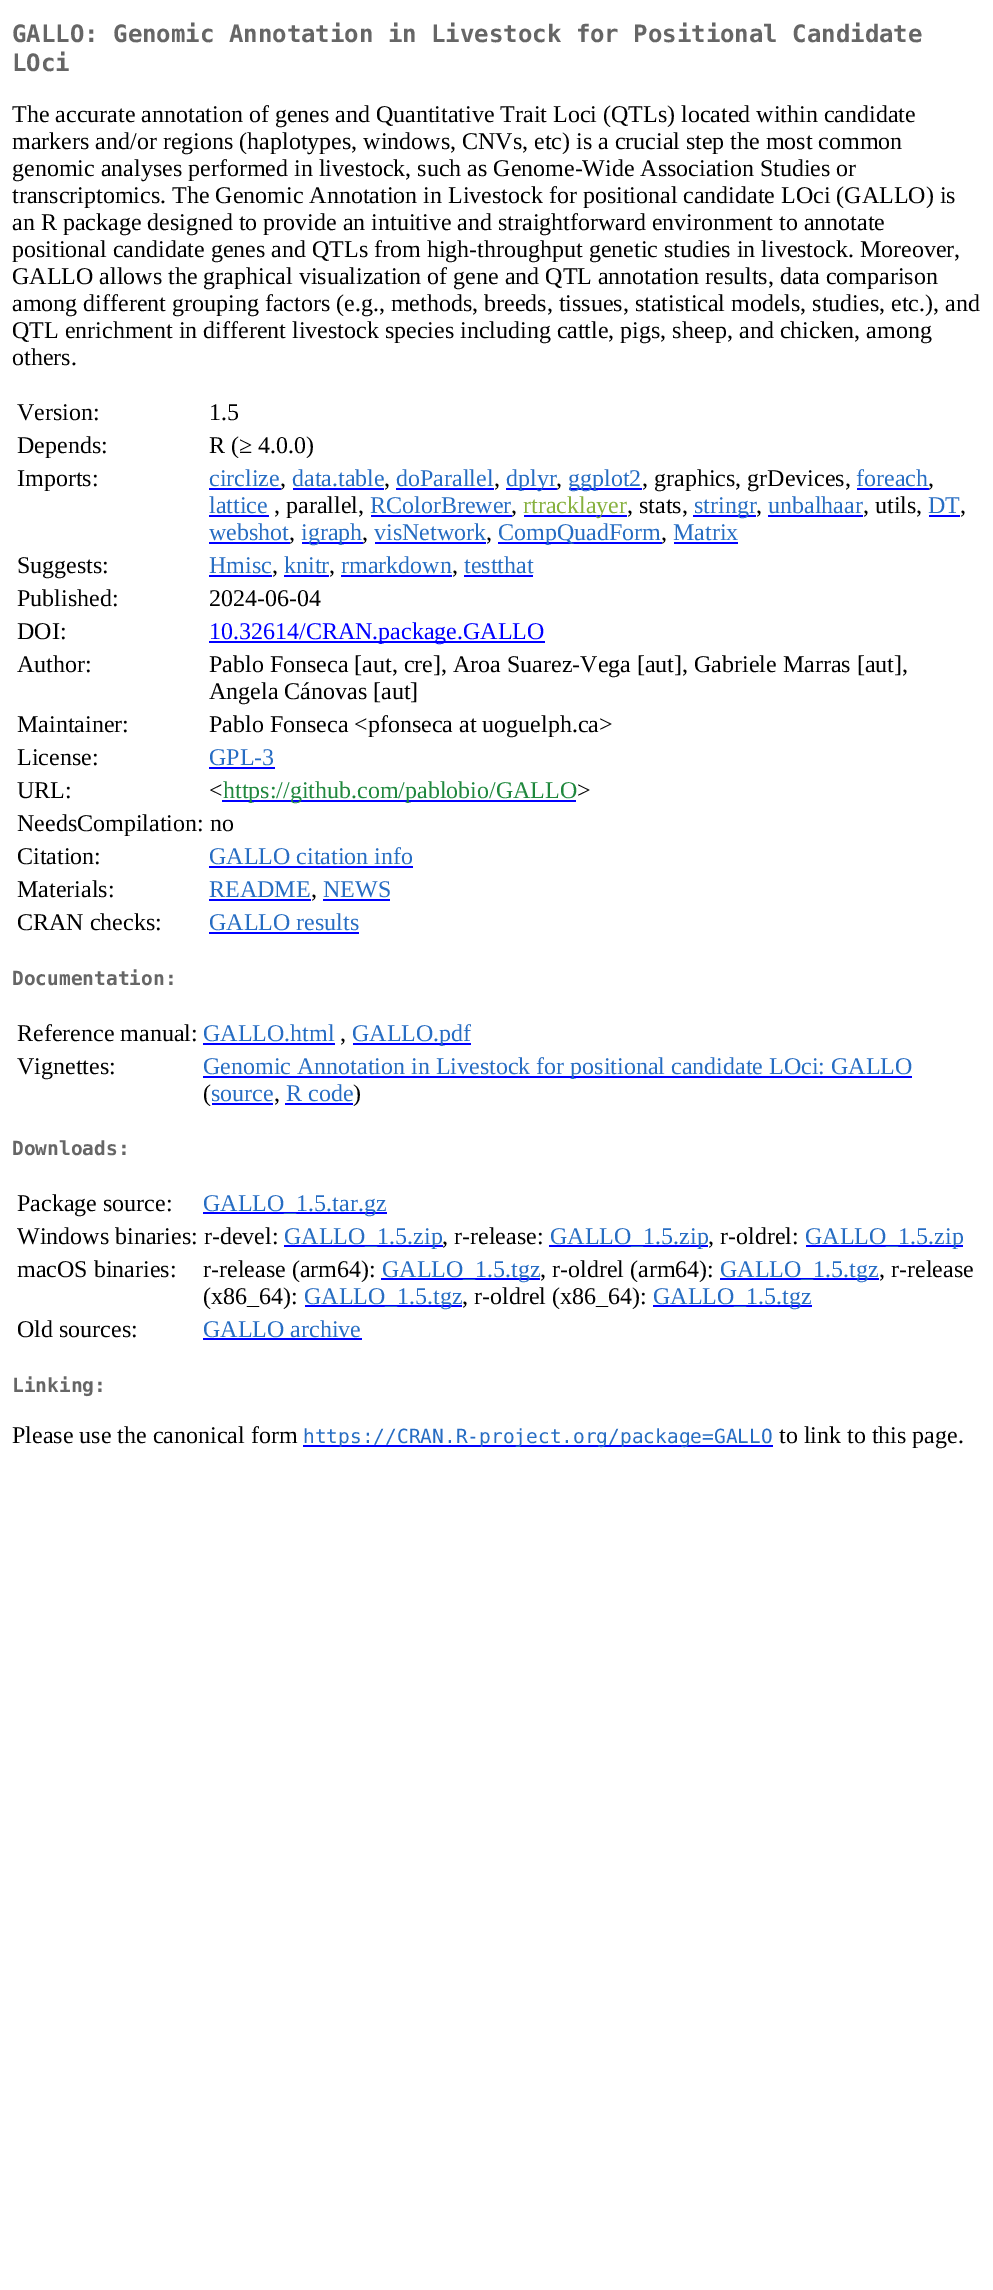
%!PS-Adobe-3.0
%%BoundingBox: 0 0 993 2290
%%LanguageLevel: 3
%%Pages: 1
%%EndComments
%%BeginProlog
/setink { dup -16 bitshift 255 div exch dup -8 bitshift 255 and 255 div exch 255 and 255 div setrgbcolor } def
/usefont { [ exch dup neg 0 0 3 -1 roll 0 0 ] selectfont } def
%%EndProlog
%%BeginSetup
<< /PageSize [993 2290] >> setpagedevice
%%EndSetup
%%Page: 1 1
0 2290 translate 1 -1 scale
4 setmiterlimit
16#FFFFFF setink
0 0 993 2290 rectfill
/DejaVuSansMono-Bold 24 usefont
16#666666 setink
12 42 moveto (GALLO: Genomic Annotation in Livestock for Positional Candidate) show
12 71 moveto (LOci) show
/LiberationSerif-Regular 24 usefont
16#000000 setink
[
    [(The accurate annotation of genes and Quantitative Trait Loci \(QTLs\) located within candidate) 12 122]
    [(markers and/or regions \(haplotypes, windows, CNVs, etc\) is a crucial step the most common) 12 149]
    [(genomic analyses performed in livestock, such as Genome-Wide Association Studies or) 12 176]
    [(transcriptomics. The Genomic Annotation in Livestock for positional candidate LOci \(GALLO\) is) 12 203]
    [(an R package designed to provide an intuitive and straightforward environment to annotate) 12 230]
    [(positional candidate genes and QTLs from high-throughput genetic studies in livestock. Moreover,) 12 257]
    [(GALLO allows the graphical visualization of gene and QTL annotation results, data comparison) 12 284]
    [(among different grouping factors \(e.g., methods, breeds, tissues, statistical models, studies, etc.\), and) 12 311]
    [(QTL enrichment in different livestock species including cattle, pigs, sheep, and chicken, among) 12 338]
    [(others.) 12 365]
    [(Version:) 17 420]
    [(1.5) 209 420]
    [(Depends:) 17 453]
    [(R \(≥ 4.0.0\)) 209 453]
    [(Imports:) 17 486]
] { aload pop moveto show } forall
16#276DC3 setink
209 486 moveto (circlize) show
16#0000FF setink
209 488 72 2 rectfill
16#000000 setink
280 486 moveto (,) show
16#276DC3 setink
292 486 moveto (data.table) show
16#0000FF setink
293 488 91 2 rectfill
16#000000 setink
384 486 moveto (,) show
16#276DC3 setink
396 486 moveto (doParallel) show
16#0000FF setink
396 488 98 2 rectfill
16#000000 setink
494 486 moveto (,) show
16#0000FF setink
506 488 51 2 rectfill
16#276DC3 setink
506 486 moveto (dplyr) show
16#000000 setink
556 486 moveto (,) show
16#0000FF setink
569 488 73 2 rectfill
16#276DC3 setink
568 486 moveto (ggplot2) show
16#000000 setink
642 486 moveto (, graphics, grDevices,) show
16#276DC3 setink
856 486 moveto (foreach) show
16#0000FF setink
857 488 72 2 rectfill
16#000000 setink
928 486 moveto (,) show
16#276DC3 setink
209 513 moveto (lattice) show
16#0000FF setink
209 515 60 2 rectfill
16#000000 setink
274 513 moveto (, parallel,) show
16#276DC3 setink
370 513 moveto (RColorBrewer) show
16#0000FF setink
371 515 141 2 rectfill
16#000000 setink
511 513 moveto (,) show
16#0000FF setink
524 515 103 2 rectfill
16#87B13F setink
523 513 moveto (rtracklayer) show
16#000000 setink
627 513 moveto (, stats,) show
16#0000FF setink
693 515 63 2 rectfill
16#276DC3 setink
694 513 moveto (stringr) show
16#000000 setink
756 513 moveto (,) show
16#276DC3 setink
768 513 moveto (unbalhaar) show
16#0000FF setink
768 515 95 2 rectfill
16#000000 setink
863 513 moveto (, utils,) show
16#276DC3 setink
928 513 moveto (DT) show
16#0000FF setink
929 515 31 2 rectfill
16#000000 setink
960 513 moveto (,) show
16#276DC3 setink
209 540 moveto (webshot) show
16#0000FF setink
209 542 81 2 rectfill
16#000000 setink
289 540 moveto (,) show
16#0000FF setink
302 542 61 2 rectfill
16#276DC3 setink
301 540 moveto (igraph) show
16#000000 setink
362 540 moveto (,) show
16#276DC3 setink
374 540 moveto (visNetwork) show
16#0000FF setink
375 542 111 2 rectfill
16#000000 setink
486 540 moveto (,) show
16#0000FF setink
498 542 164 2 rectfill
16#276DC3 setink
498 540 moveto (CompQuadForm) show
16#000000 setink
661 540 moveto (,) show
16#276DC3 setink
673 540 moveto (Matrix) show
16#0000FF setink
674 542 64 2 rectfill
16#000000 setink
17 573 moveto (Suggests:) show
16#276DC3 setink
209 573 moveto (Hmisc) show
16#0000FF setink
209 575 63 2 rectfill
16#000000 setink
272 573 moveto (,) show
16#276DC3 setink
284 573 moveto (knitr) show
16#0000FF setink
284 575 45 2 rectfill
16#000000 setink
329 573 moveto (,) show
16#276DC3 setink
341 573 moveto (rmarkdown) show
16#0000FF setink
341 575 111 2 rectfill
16#000000 setink
452 573 moveto (,) show
16#276DC3 setink
464 573 moveto (testthat) show
16#0000FF setink
464 575 69 2 rectfill
16#000000 setink
[
    [(Published:) 17 606]
    [(2024-06-04) 209 606]
    [(DOI:) 17 639]
] { aload pop moveto show } forall
16#0000FF setink
209 641 336 2 rectfill
209 639 moveto (10.32614/CRAN.package.GALLO) show
16#000000 setink
[
    [(Author:) 17 672]
    [(Pablo Fonseca [aut, cre], Aroa Suarez-Vega [aut], Gabriele Marras [aut],) 209 672]
    [(Angela Cánovas [aut]) 209 699]
    [(Maintainer:) 17 732]
    [(Pablo Fonseca <pfonseca at uoguelph.ca>) 209 732]
    [(License:) 17 765]
] { aload pop moveto show } forall
16#276DC3 setink
209 765 moveto (GPL-3) show
16#0000FF setink
209 767 66 2 rectfill
16#000000 setink
17 798 moveto (URL:) show
209 798 moveto (<) show
16#0000FF setink
222 800 354 2 rectfill
16#1F883D setink
223 798 moveto (https://github.com/pablobio/GALLO) show
16#000000 setink
[
    [(>) 577 798]
    [(NeedsCompilation: no) 17 831]
    [(Citation:) 17 864]
] { aload pop moveto show } forall
16#276DC3 setink
209 864 moveto (GALLO citation info) show
16#0000FF setink
209 866 204 2 rectfill
16#000000 setink
17 897 moveto (Materials:) show
16#276DC3 setink
209 897 moveto (README) show
16#0000FF setink
209 899 102 2 rectfill
16#000000 setink
311 897 moveto (,) show
16#276DC3 setink
323 897 moveto (NEWS) show
16#0000FF setink
323 899 67 2 rectfill
16#000000 setink
17 930 moveto (CRAN checks:) show
16#276DC3 setink
209 930 moveto (GALLO results) show
16#0000FF setink
209 932 150 2 rectfill
/DejaVuSansMono-Bold 19.5 usefont
16#666666 setink
12 985 moveto (Documentation:) show
/LiberationSerif-Regular 24 usefont
16#000000 setink
17 1041 moveto (Reference manual:) show
16#276DC3 setink
203 1041 moveto (GALLO.html) show
16#0000FF setink
203 1043 132 2 rectfill
16#000000 setink
340 1041 moveto (,) show
16#0000FF setink
353 1043 118 2 rectfill
16#276DC3 setink
352 1041 moveto (GALLO.pdf) show
16#000000 setink
17 1074 moveto (Vignettes:) show
16#0000FF setink
203 1076 709 2 rectfill
16#276DC3 setink
203 1074 moveto (Genomic Annotation in Livestock for positional candidate LOci: GALLO) show
16#000000 setink
203 1101 moveto (\() show
16#276DC3 setink
211 1101 moveto (source) show
16#0000FF setink
212 1103 61 2 rectfill
16#000000 setink
274 1101 moveto (,) show
16#276DC3 setink
286 1101 moveto (R code) show
16#0000FF setink
285 1103 68 2 rectfill
16#000000 setink
353 1101 moveto (\)) show
/DejaVuSansMono-Bold 19.5 usefont
16#666666 setink
12 1155 moveto (Downloads:) show
/LiberationSerif-Regular 24 usefont
16#000000 setink
17 1211 moveto (Package source:) show
16#0000FF setink
203 1212 184 2 rectfill
16#276DC3 setink
203 1211 moveto (GALLO_1.5.tar.gz) show
16#000000 setink
17 1244 moveto (Windows binaries: r-devel:) show
16#0000FF setink
284 1245 159 2 rectfill
16#276DC3 setink
284 1244 moveto (GALLO_1.5.zip) show
16#000000 setink
442 1244 moveto (, r-release:) show
16#0000FF setink
549 1245 159 2 rectfill
16#276DC3 setink
550 1244 moveto (GALLO_1.5.zip) show
16#000000 setink
708 1244 moveto (, r-oldrel:) show
16#0000FF setink
806 1245 157 2 rectfill
16#276DC3 setink
805 1244 moveto (GALLO_1.5.zip) show
16#000000 setink
17 1277 moveto (macOS binaries:) show
203 1277 moveto (r-release \(arm64\):) show
16#0000FF setink
381 1278 159 2 rectfill
16#276DC3 setink
382 1277 moveto (GALLO_1.5.tgz) show
16#000000 setink
540 1277 moveto (, r-oldrel \(arm64\):) show
16#0000FF setink
720 1278 159 2 rectfill
16#276DC3 setink
720 1277 moveto (GALLO_1.5.tgz) show
16#000000 setink
879 1277 moveto (, r-release) show
203 1304 moveto (\(x86_64\):) show
16#0000FF setink
305 1305 157 2 rectfill
16#276DC3 setink
304 1304 moveto (GALLO_1.5.tgz) show
16#000000 setink
462 1304 moveto (, r-oldrel \(x86_64\):) show
16#0000FF setink
653 1305 159 2 rectfill
16#276DC3 setink
653 1304 moveto (GALLO_1.5.tgz) show
16#000000 setink
17 1337 moveto (Old sources:) show
16#276DC3 setink
203 1337 moveto (GALLO archive) show
16#0000FF setink
203 1338 159 2 rectfill
/DejaVuSansMono-Bold 19.5 usefont
16#666666 setink
12 1392 moveto (Linking:) show
/LiberationSerif-Regular 24 usefont
16#000000 setink
12 1443 moveto (Please use the canonical form) show
16#0000FF setink
303 1445 470 2 rectfill
/DejaVuSansMono-Regular 19.5 usefont
16#276DC3 setink
303 1443 moveto (https://CRAN.R-project.org/package=GALLO) show
/LiberationSerif-Regular 24 usefont
16#000000 setink
779 1443 moveto (to link to this page.) show
showpage
%%EOF
